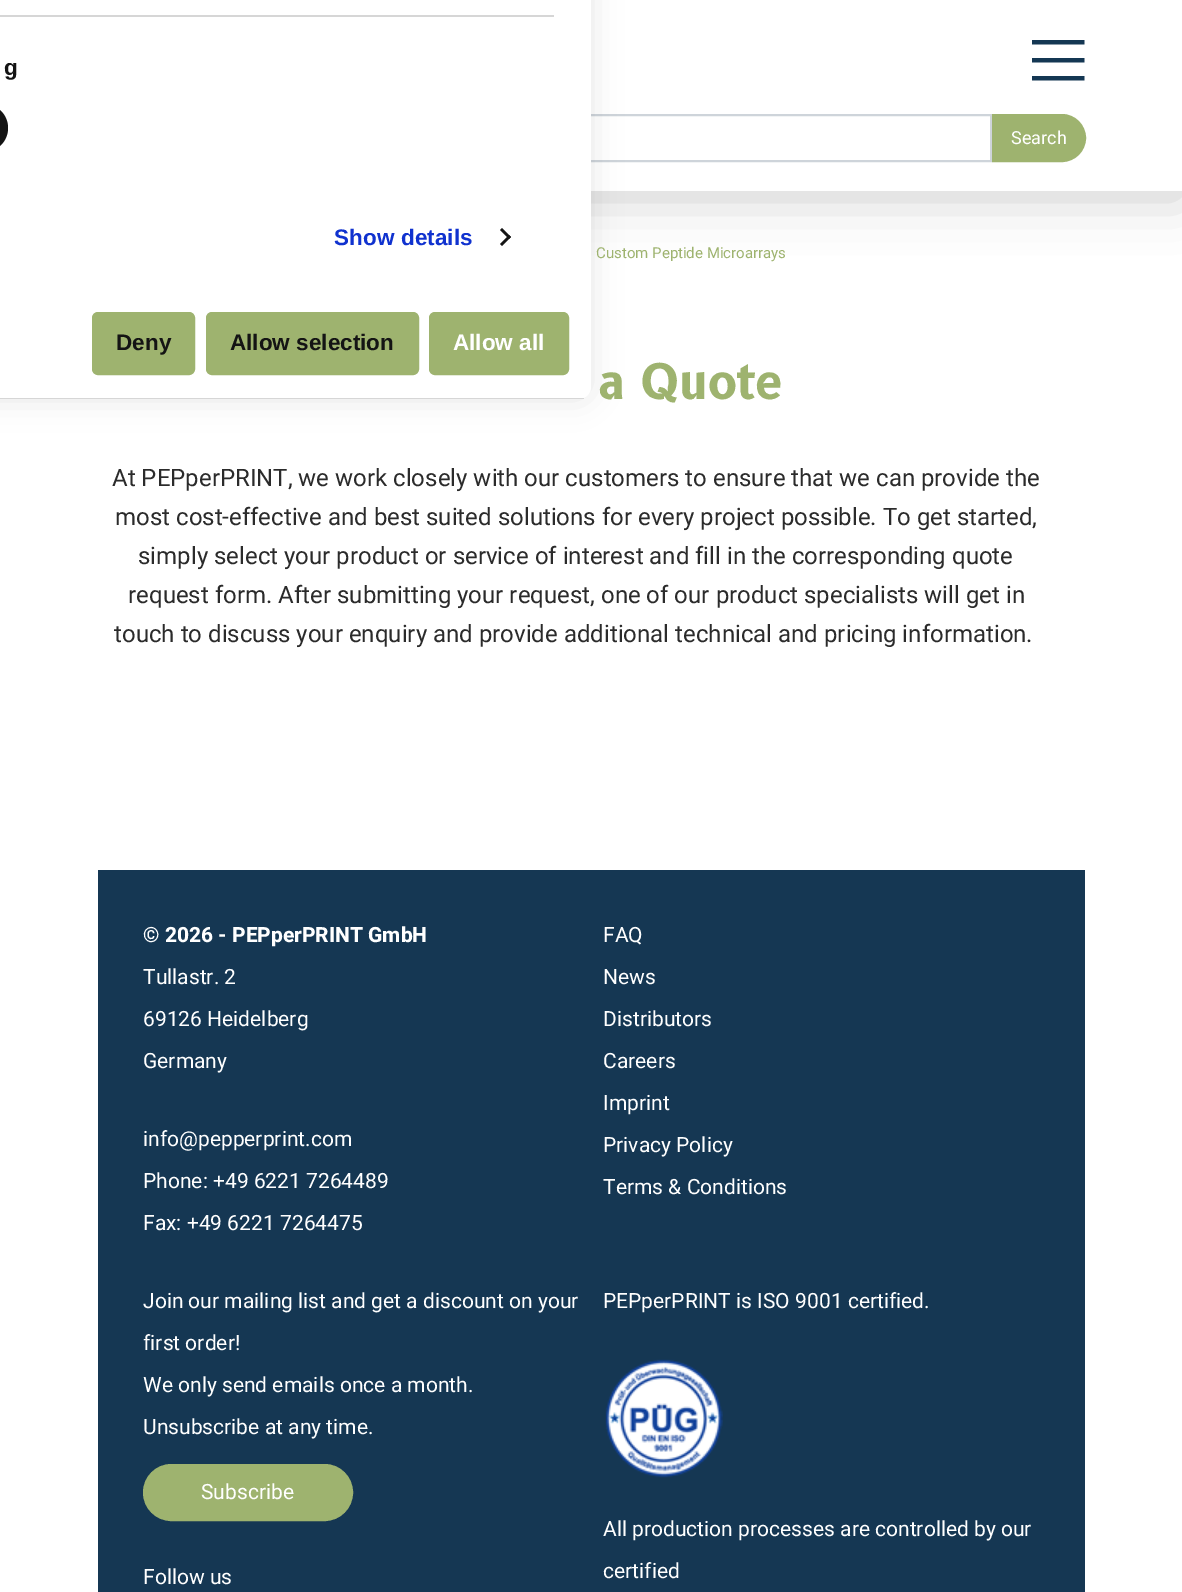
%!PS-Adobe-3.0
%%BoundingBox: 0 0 1182 1592
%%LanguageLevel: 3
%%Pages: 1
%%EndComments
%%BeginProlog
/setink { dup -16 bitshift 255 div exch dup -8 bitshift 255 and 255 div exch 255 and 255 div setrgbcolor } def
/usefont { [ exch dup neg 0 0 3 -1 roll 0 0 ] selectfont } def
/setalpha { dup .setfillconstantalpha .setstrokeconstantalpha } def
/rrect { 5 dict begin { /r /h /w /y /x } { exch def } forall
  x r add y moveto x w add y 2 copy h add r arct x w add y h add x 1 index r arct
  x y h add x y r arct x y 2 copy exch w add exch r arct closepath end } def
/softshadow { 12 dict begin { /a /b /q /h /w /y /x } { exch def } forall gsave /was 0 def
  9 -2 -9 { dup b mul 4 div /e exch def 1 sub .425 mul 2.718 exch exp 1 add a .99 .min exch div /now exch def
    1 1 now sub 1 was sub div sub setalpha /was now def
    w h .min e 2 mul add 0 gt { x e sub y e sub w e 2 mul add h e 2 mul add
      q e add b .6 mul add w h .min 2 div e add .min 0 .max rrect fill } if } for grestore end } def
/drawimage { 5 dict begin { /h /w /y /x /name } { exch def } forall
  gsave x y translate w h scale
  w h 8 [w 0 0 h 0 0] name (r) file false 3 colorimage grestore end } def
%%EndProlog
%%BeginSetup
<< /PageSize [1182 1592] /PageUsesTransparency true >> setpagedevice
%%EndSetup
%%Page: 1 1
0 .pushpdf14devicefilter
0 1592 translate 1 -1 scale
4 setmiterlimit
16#FFFFFF setink
0 0 1182 1592 rectfill
16#000000 setink
0 6 1182 191 0 26 0.2 softshadow
16#FFFFFF setink
591 0 591 191 rectfill
16#CED4DA setink
2 setlinewidth
99 115 892 46 rectstroke
16#000000 setink
-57 -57 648 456 12 15 0.1 softshadow
16#FFFFFF setink
-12 -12 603 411 12 rrect fill
16#D6D6D6 setink
0 15 554 2 rectfill
/LiberationSans-Bold 22.5 usefont
16#141414 setink
4 75 moveto 0.1 0 (g) ashow
-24 104 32 48 24 rrect fill
16#1032CF setink
334 245 moveto 0.1 0 (Show details) ashow
16#141414 setink
502 228 moveto 511 237 lineto 509 239 lineto 500 230 lineto closepath fill
509 235 moveto 511 237 lineto 502 246 lineto 500 244 lineto closepath fill
gsave
-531 -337 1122 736 12 rrect clip newpath
16#D6D6D6 setink
0 398 591 1 rectfill
grestore
16#9EB36F setink
93 313 101 61 5 rrect gsave fill grestore
stroke
16#141414 setink
116 350 moveto (Deny) show
16#9EB36F setink
207 313 211 61 5 rrect gsave fill grestore
stroke
16#141414 setink
230 350 moveto (Allow selection) show
16#9EB36F setink
430 313 138 61 5 rrect gsave fill grestore
stroke
16#FFFFFF setink
453 350 moveto (Allow all) show
(img1.raw) 1032 40 53 41 drawimage
16#9EB36F setink
993 115 moveto 1062 115 lineto 1074.5 115 1085 125.5 1085 138 curveto 1085 150.5 1074.5 161 1062 161 curveto 993 161 lineto closepath gsave fill grestore
stroke
/Heebo-Regular 18 usefont
16#FFFFFF setink
1011 144 moveto (Search) show
/Heebo-Regular 15 usefont
16#9EB36F setink
596 258 moveto (Custom Peptide Microarrays) show
/B612-Bold 48 usefont
599 399 moveto (a Quote) show
/Heebo-Regular 24 usefont
16#2B2B2B setink
[
    [(At PEPperPRINT, we work closely with our customers to ensure that we can provide the) 112 486]
    [(most cost-effective and best suited solutions for every project possible. To get started,) 115 525]
    [(simply select your product or service of interest and fill in the corresponding quote) 138 564]
    [(request form. After submitting your request, one of our product specialists will get in) 128 603]
    [(touch to discuss your enquiry and provide additional technical and pricing information.) 114 642]
] { aload pop moveto show } forall
16#153753 setink
98 870 987 722 rectfill
/Heebo-Bold 21 usefont
16#FFFFFF setink
143 942 moveto (© 2026 - PEPperPRINT GmbH) show
/Heebo-Regular 21 usefont
[
    [(Tullastr. 2) 143 984]
    [(69126 Heidelberg) 143 1026]
    [(Germany) 143 1068]
    [(info@pepperprint.com) 143 1146]
    [(Phone: +49 6221 7264489) 143 1188]
    [(Fax: +49 6221 7264475) 143 1230]
    [(FAQ) 603 942]
    [(News) 603 984]
    [(Distributors) 603 1026]
    [(Careers) 603 1068]
    [(Imprint) 603 1110]
    [(Privacy Policy) 603 1152]
    [(Terms & Conditions) 603 1194]
    [(Join our mailing list and get a discount on your) 143 1308]
    [(first order!) 143 1350]
    [(We only send emails once a month.) 143 1392]
    [(Unsubscribe at any time.) 143 1434]
] { aload pop moveto show } forall
16#9EB36F setink
144 1465 208 55 27.5 rrect gsave fill grestore
stroke
16#FFFFFF setink
[
    [(Subscribe) 201 1499]
    [(Follow us) 143 1584]
    [(PEPperPRINT is ISO 9001 certified.) 603 1308]
] { aload pop moveto show } forall
(img2.raw) 605 1359 118 119 drawimage
603 1536 moveto (All production processes are controlled by our) show
603 1578 moveto (certified) show
.poppdf14devicefilter showpage
%%EOF
